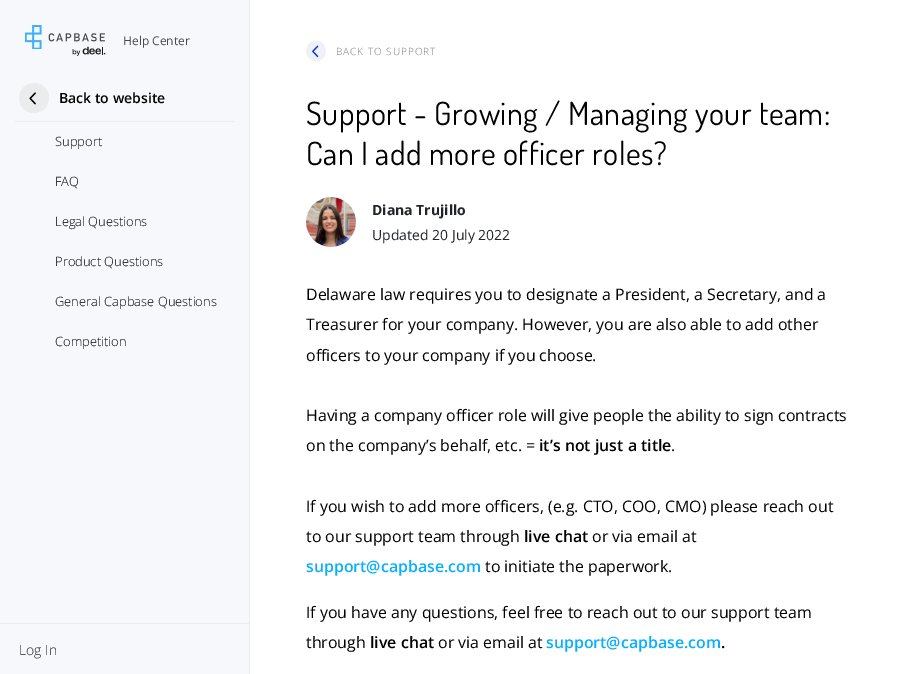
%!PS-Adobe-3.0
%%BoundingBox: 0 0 903 674
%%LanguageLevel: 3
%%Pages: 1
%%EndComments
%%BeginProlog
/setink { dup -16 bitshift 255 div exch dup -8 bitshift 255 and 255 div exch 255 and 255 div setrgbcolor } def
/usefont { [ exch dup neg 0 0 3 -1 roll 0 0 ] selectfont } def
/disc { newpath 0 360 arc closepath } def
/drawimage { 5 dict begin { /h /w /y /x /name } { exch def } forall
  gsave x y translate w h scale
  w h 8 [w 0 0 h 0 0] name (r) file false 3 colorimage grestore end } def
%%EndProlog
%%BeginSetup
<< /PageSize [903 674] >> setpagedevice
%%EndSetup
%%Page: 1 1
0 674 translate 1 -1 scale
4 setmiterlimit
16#FFFFFF setink
0 0 903 674 rectfill
16#F6F8FB setink
0 0 249 674 rectfill
16#EEEEEE setink
249 0 1 674 rectfill
(img1.raw) 25 25 81 31 drawimage
/OpenSans-Regular 12 usefont
16#4A4A4A setink
123 45 moveto (Help Center) show
16#EAECEE setink
15 121 219 1 rectfill
34 98 15 disc fill
(img2.raw) 29 92 7 13 drawimage
/OpenSans-SemiBold 14 usefont
16#000000 setink
59 103 moveto (Back to website) show
/OpenSans-Light 12.9 usefont
[
    [(Support) 55 146]
    [(FAQ) 55 186]
    [(Legal Questions) 55 226]
    [(Product Questions) 55 266]
    [(General Capbase Questions) 55 306]
    [(Competition) 55 346]
] { aload pop moveto show } forall
16#EAECEE setink
0 623 249 1 rectfill
/OpenSans-Light 14 usefont
16#212529 setink
19 655 moveto (Log In) show
16#EEF1F6 setink
316 61 moveto 303 61 303 41 316 41 curveto 329 41 329 61 316 61 curveto closepath fill
(img3.raw) 312 45 7 13 drawimage
/OpenSans-Light 10 usefont
16#808080 setink
336 55 moveto 1 0 (BACK TO SUPPORT) ashow
/Dosis-Regular 32 usefont
16#000000 setink
306 125 moveto 0.5 0 (Support - Growing / Managing your team:) ashow
306 165 moveto 0.5 0 (Can I add more officer roles?) ashow
(img4.raw) 306 197 50 50 drawimage
/OpenSans-Bold 14 usefont
16#212529 setink
372 215 moveto (Diana Trujillo) show
/OpenSans-Regular 14 usefont
372 240 moveto (Updated 20 July 2022) show
/OpenSans-Regular 15.9 usefont
16#000000 setink
[
    [(Delaware law requires you to designate a President, a Secretary, and a) 306 300]
    [(Treasurer for your company. However, you are also able to add other) 306 330]
    [(officers to your company if you choose.) 306 361]
    [(Having a company officer role will give people the ability to sign contracts) 306 421]
    [(on the company’s behalf, etc. =) 306 451]
] { aload pop moveto show } forall
/OpenSans-SemiBold 15.9 usefont
539 451 moveto (it’s not just a title) show
/OpenSans-Regular 15.9 usefont
[
    [(.) 671 451]
    [(If you wish to add more officers, \(e.g. CTO, COO, CMO\) please reach out) 306 512]
    [(to our support team through) 306 542]
] { aload pop moveto show } forall
/OpenSans-SemiBold 15.9 usefont
524 542 moveto (live chat) show
/OpenSans-Regular 15.9 usefont
592 542 moveto (or via email at) show
/OpenSans-SemiBold 15.9 usefont
16#09AEFF setink
306 572 moveto (support@capbase.com) show
/OpenSans-Regular 15.9 usefont
16#000000 setink
[
    [(to initiate the paperwork.) 485 572]
    [(If you have any questions, feel free to reach out to our support team) 306 618]
    [(through) 306 648]
] { aload pop moveto show } forall
/OpenSans-SemiBold 15.9 usefont
370 648 moveto (live chat) show
/OpenSans-Regular 15.9 usefont
438 648 moveto (or via email at) show
/OpenSans-SemiBold 15.9 usefont
16#09AEFF setink
546 648 moveto (support@capbase.com) show
16#000000 setink
721 648 moveto (.) show
showpage
%%EOF
